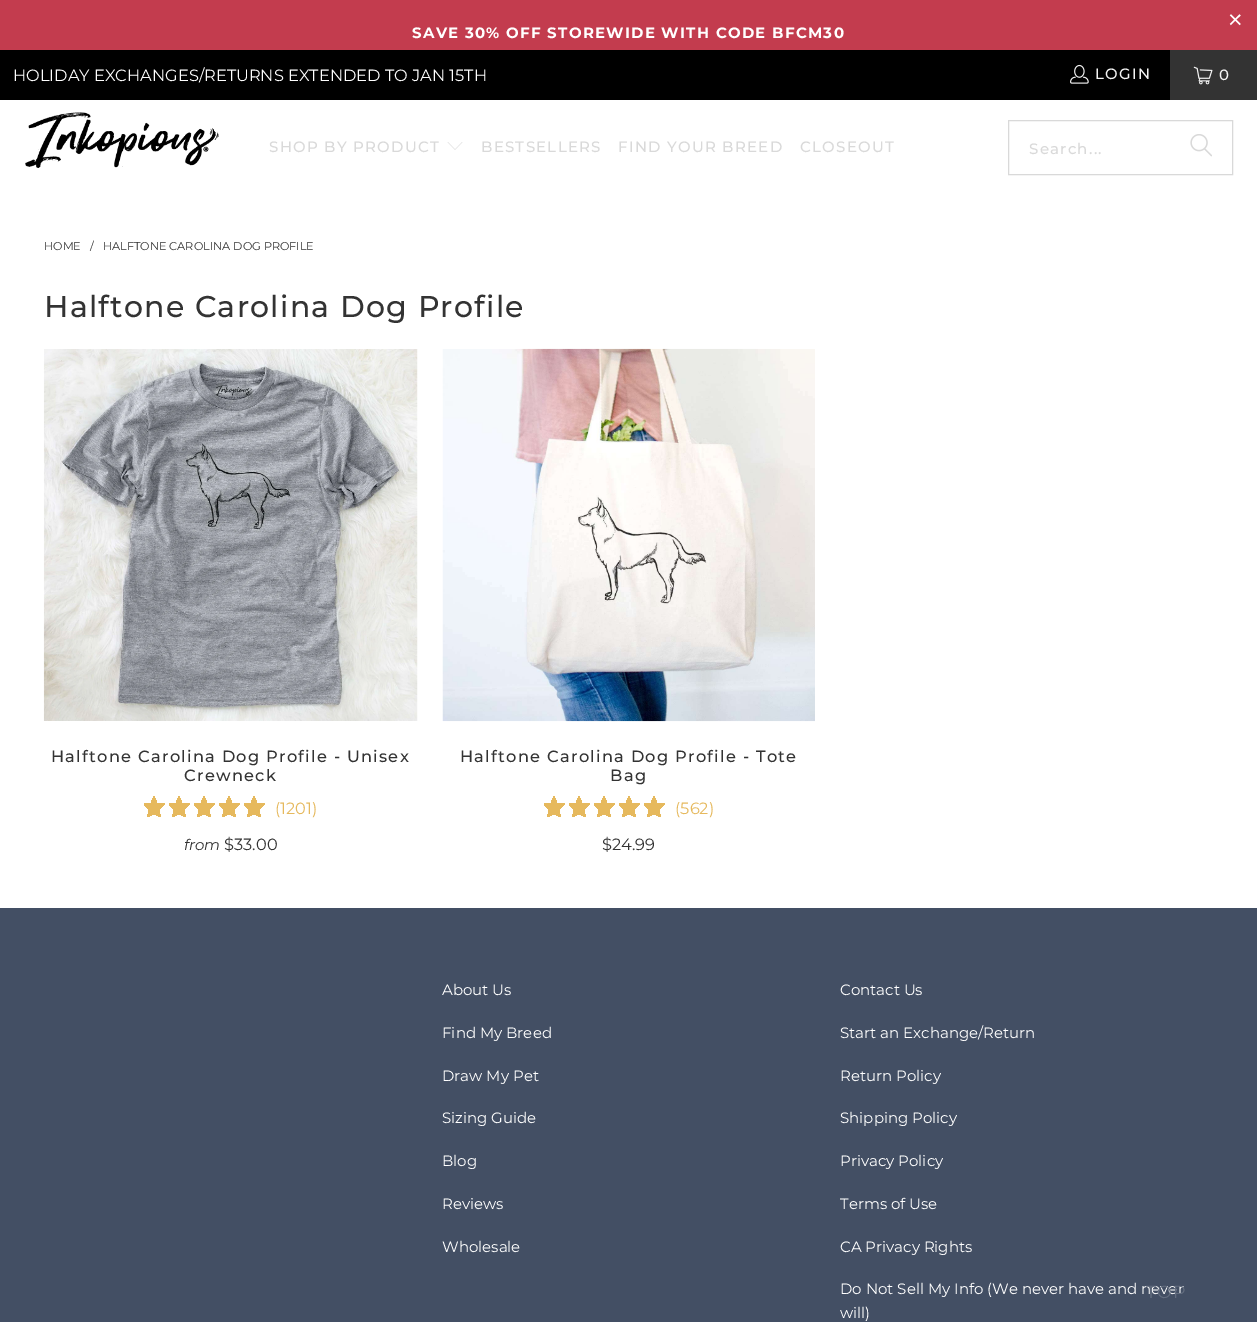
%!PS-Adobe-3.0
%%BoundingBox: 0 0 1257 1322
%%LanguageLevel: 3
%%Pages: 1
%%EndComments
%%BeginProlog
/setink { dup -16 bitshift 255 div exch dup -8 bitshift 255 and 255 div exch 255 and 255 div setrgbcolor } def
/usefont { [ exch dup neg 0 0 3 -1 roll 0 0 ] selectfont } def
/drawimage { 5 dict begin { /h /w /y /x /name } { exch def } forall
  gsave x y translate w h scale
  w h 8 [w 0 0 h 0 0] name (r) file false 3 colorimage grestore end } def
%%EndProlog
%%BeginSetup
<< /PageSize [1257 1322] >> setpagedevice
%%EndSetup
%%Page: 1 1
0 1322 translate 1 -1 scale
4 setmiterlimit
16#FFFFFF setink
0 0 1257 1322 rectfill
16#C33C4E setink
0 0 1257 50 rectfill
/LiberationSans-Regular 25 usefont
16#FFFFFF setink
1228 28 moveto 1.25 0 (×) ashow
/Montserrat-Bold 15 usefont
412 38 moveto 1.25 0 (SAVE 30% OFF STOREWIDE WITH CODE BFCM30) ashow
16#000000 setink
0 50 1170 50 rectfill
/Montserrat-Regular 16.25 usefont
16#FFFFFF setink
13 81 moveto (HOLIDAY EXCHANGES/RETURNS EXTENDED TO JAN 15TH) show
(img1.raw) 1070 64 19 20 drawimage
/Montserrat-Medium 15 usefont
16#F4F4F4 setink
1095 79 moveto 1.25 0 (LOGIN) ashow
16#333333 setink
1170 50 87 50 rectfill
(img2.raw) 1193 66 20 19 drawimage
16#F4F4F4 setink
1219 80 moveto 1.25 0 (0) ashow
(img3.raw) 25 112 194 56 drawimage
16#D9D9D9 setink
269 152 moveto 1.25 0 (SHOP BY PRODUCT) ashow
(img4.raw) 447 142 16 8 drawimage
481 152 moveto 1.25 0 (BESTSELLERS) ashow
618 152 moveto 1.25 0 (FIND YOUR BREED) ashow
800 152 moveto 1.25 0 (CLOSEOUT) ashow
1008.5 120.5 224 54 rectstroke
1029 154 moveto 1.25 0 (Search...) ashow
(img5.raw) 1190 134 22 23 drawimage
/Montserrat-Regular 11.25 usefont
16#333333 setink
[
    [(HOME) 44 250]
    [(/) 90 250]
    [(HALFTONE CAROLINA DOG PROFILE) 103 250]
] { aload pop moveto show } forall
/Montserrat-Medium 30 usefont
44 317 moveto 1.25 0 (Halftone Carolina Dog Profile) ashow
(img6.raw) 43 349 375 372 drawimage
/Montserrat-Medium 16.25 usefont
51 762 moveto 1.25 0 (Halftone Carolina Dog Profile - Unisex) ashow
184 781 moveto 1.25 0 (Crewneck) ashow
16#E6B95D setink
154 796 moveto 151 803 lineto 144 804 lineto 149 809.5 lineto 147.5 817 lineto 154 813.5 lineto 160.5 817 lineto 159 809.5 lineto 164.5 804 lineto 157 803 lineto closepath fill
gsave
154 796 moveto 157 803 lineto 164.5 804 lineto 159 809.5 lineto 160.5 817 lineto 154 813.5 lineto 147.5 817 lineto 149 809.5 lineto 144 804 lineto 151 803 lineto closepath clip newpath
2.9 setlinewidth
1 setlinecap
1 setlinejoin
154 796 moveto 157 803 lineto 164.5 804 lineto 159 809.5 lineto 160.5 817 lineto 154 813.5 lineto 147.5 817 lineto 149 809.5 lineto 144 804 lineto 151 803 lineto closepath stroke
grestore
179 796 moveto 176 803 lineto 169 804 lineto 174 809.5 lineto 172.5 817 lineto 179 813.5 lineto 185.5 817 lineto 184 809.5 lineto 189.5 804 lineto 182 803 lineto closepath fill
gsave
179 796 moveto 182 803 lineto 189.5 804 lineto 184 809.5 lineto 185.5 817 lineto 179 813.5 lineto 172.5 817 lineto 174 809.5 lineto 169 804 lineto 176 803 lineto closepath clip newpath
2.9 setlinewidth
1 setlinecap
1 setlinejoin
179 796 moveto 182 803 lineto 189.5 804 lineto 184 809.5 lineto 185.5 817 lineto 179 813.5 lineto 172.5 817 lineto 174 809.5 lineto 169 804 lineto 176 803 lineto closepath stroke
grestore
204 796 moveto 201 803 lineto 194 804 lineto 199 809.5 lineto 197.5 817 lineto 204 813.5 lineto 210.5 817 lineto 209 809.5 lineto 214.5 804 lineto 207 803 lineto closepath fill
gsave
204 796 moveto 207 803 lineto 214.5 804 lineto 209 809.5 lineto 210.5 817 lineto 204 813.5 lineto 197.5 817 lineto 199 809.5 lineto 194 804 lineto 201 803 lineto closepath clip newpath
2.9 setlinewidth
1 setlinecap
1 setlinejoin
204 796 moveto 207 803 lineto 214.5 804 lineto 209 809.5 lineto 210.5 817 lineto 204 813.5 lineto 197.5 817 lineto 199 809.5 lineto 194 804 lineto 201 803 lineto closepath stroke
grestore
229 796 moveto 226 803 lineto 219 804 lineto 224 809.5 lineto 222.5 817 lineto 229 813.5 lineto 235.5 817 lineto 234 809.5 lineto 239.5 804 lineto 232 803 lineto closepath fill
gsave
229 796 moveto 232 803 lineto 239.5 804 lineto 234 809.5 lineto 235.5 817 lineto 229 813.5 lineto 222.5 817 lineto 224 809.5 lineto 219 804 lineto 226 803 lineto closepath clip newpath
2.9 setlinewidth
1 setlinecap
1 setlinejoin
229 796 moveto 232 803 lineto 239.5 804 lineto 234 809.5 lineto 235.5 817 lineto 229 813.5 lineto 222.5 817 lineto 224 809.5 lineto 219 804 lineto 226 803 lineto closepath stroke
grestore
254 796 moveto 251 803 lineto 244 804 lineto 249 809.5 lineto 247.5 817 lineto 254 813.5 lineto 260.5 817 lineto 259 809.5 lineto 264.5 804 lineto 257 803 lineto closepath fill
gsave
254 796 moveto 257 803 lineto 264.5 804 lineto 259 809.5 lineto 260.5 817 lineto 254 813.5 lineto 247.5 817 lineto 249 809.5 lineto 244 804 lineto 251 803 lineto closepath clip newpath
2.9 setlinewidth
1 setlinecap
1 setlinejoin
254 796 moveto 257 803 lineto 264.5 804 lineto 259 809.5 lineto 260.5 817 lineto 254 813.5 lineto 247.5 817 lineto 249 809.5 lineto 244 804 lineto 251 803 lineto closepath stroke
grestore
/Montserrat-Regular 16.25 usefont
275 814 moveto (\(1201\)) show
/Montserrat-Italic 15 usefont
16#333333 setink
184 850 moveto (from) show
/Montserrat-Regular 16.25 usefont
224 850 moveto ($33.00) show
(img7.raw) 442 348 373 374 drawimage
/Montserrat-Medium 16.25 usefont
460 762 moveto 1.25 0 (Halftone Carolina Dog Profile - Tote) ashow
610 781 moveto 1.25 0 (Bag) ashow
16#E6B95D setink
554 796 moveto 551 803 lineto 544 804 lineto 549 809.5 lineto 547.5 817 lineto 554 813.5 lineto 560.5 817 lineto 559 809.5 lineto 564.5 804 lineto 557 803 lineto closepath fill
gsave
554 796 moveto 557 803 lineto 564.5 804 lineto 559 809.5 lineto 560.5 817 lineto 554 813.5 lineto 547.5 817 lineto 549 809.5 lineto 544 804 lineto 551 803 lineto closepath clip newpath
2.9 setlinewidth
1 setlinecap
1 setlinejoin
554 796 moveto 557 803 lineto 564.5 804 lineto 559 809.5 lineto 560.5 817 lineto 554 813.5 lineto 547.5 817 lineto 549 809.5 lineto 544 804 lineto 551 803 lineto closepath stroke
grestore
579 796 moveto 576 803 lineto 569 804 lineto 574 809.5 lineto 572.5 817 lineto 579 813.5 lineto 585.5 817 lineto 584 809.5 lineto 589.5 804 lineto 582 803 lineto closepath fill
gsave
579 796 moveto 582 803 lineto 589.5 804 lineto 584 809.5 lineto 585.5 817 lineto 579 813.5 lineto 572.5 817 lineto 574 809.5 lineto 569 804 lineto 576 803 lineto closepath clip newpath
2.9 setlinewidth
1 setlinecap
1 setlinejoin
579 796 moveto 582 803 lineto 589.5 804 lineto 584 809.5 lineto 585.5 817 lineto 579 813.5 lineto 572.5 817 lineto 574 809.5 lineto 569 804 lineto 576 803 lineto closepath stroke
grestore
604 796 moveto 601 803 lineto 594 804 lineto 599 809.5 lineto 597.5 817 lineto 604 813.5 lineto 610.5 817 lineto 609 809.5 lineto 614.5 804 lineto 607 803 lineto closepath fill
gsave
604 796 moveto 607 803 lineto 614.5 804 lineto 609 809.5 lineto 610.5 817 lineto 604 813.5 lineto 597.5 817 lineto 599 809.5 lineto 594 804 lineto 601 803 lineto closepath clip newpath
2.9 setlinewidth
1 setlinecap
1 setlinejoin
604 796 moveto 607 803 lineto 614.5 804 lineto 609 809.5 lineto 610.5 817 lineto 604 813.5 lineto 597.5 817 lineto 599 809.5 lineto 594 804 lineto 601 803 lineto closepath stroke
grestore
629 796 moveto 626 803 lineto 619 804 lineto 624 809.5 lineto 622.5 817 lineto 629 813.5 lineto 635.5 817 lineto 634 809.5 lineto 639.5 804 lineto 632 803 lineto closepath fill
gsave
629 796 moveto 632 803 lineto 639.5 804 lineto 634 809.5 lineto 635.5 817 lineto 629 813.5 lineto 622.5 817 lineto 624 809.5 lineto 619 804 lineto 626 803 lineto closepath clip newpath
2.9 setlinewidth
1 setlinecap
1 setlinejoin
629 796 moveto 632 803 lineto 639.5 804 lineto 634 809.5 lineto 635.5 817 lineto 629 813.5 lineto 622.5 817 lineto 624 809.5 lineto 619 804 lineto 626 803 lineto closepath stroke
grestore
654 796 moveto 651 803 lineto 644 804 lineto 649 809.5 lineto 647.5 817 lineto 654 813.5 lineto 660.5 817 lineto 659 809.5 lineto 664.5 804 lineto 657 803 lineto closepath fill
gsave
654 796 moveto 657 803 lineto 664.5 804 lineto 659 809.5 lineto 660.5 817 lineto 654 813.5 lineto 647.5 817 lineto 649 809.5 lineto 644 804 lineto 651 803 lineto closepath clip newpath
2.9 setlinewidth
1 setlinecap
1 setlinejoin
654 796 moveto 657 803 lineto 664.5 804 lineto 659 809.5 lineto 660.5 817 lineto 654 813.5 lineto 647.5 817 lineto 649 809.5 lineto 644 804 lineto 651 803 lineto closepath stroke
grestore
/Montserrat-Regular 16.25 usefont
675 814 moveto (\(562\)) show
16#333333 setink
602 850 moveto ($24.99) show
16#434F64 setink
0 908 1257 414 rectfill
/Montserrat-Regular 15 usefont
16#FFFFFF setink
[
    [(About Us) 442 995]
    [(Find My Breed) 442 1038]
    [(Draw My Pet) 442 1081]
    [(Sizing Guide) 442 1123]
    [(Blog) 442 1166]
    [(Reviews) 442 1209]
    [(Wholesale) 442 1252]
    [(Contact Us) 840 995]
    [(Start an Exchange/Return) 840 1038]
    [(Return Policy) 840 1081]
    [(Shipping Policy) 840 1123]
    [(Privacy Policy) 840 1166]
    [(Terms of Use) 840 1209]
    [(CA Privacy Rights) 840 1252]
    [(Do Not Sell My Info \(We never have and never) 840 1294]
    [(will\)) 840 1318]
] { aload pop moveto show } forall
/Montserrat-Regular 17.5 usefont
16#636D7F setink
1146 1298 moveto 1.25 0 (TOP) ashow
showpage
%%EOF
